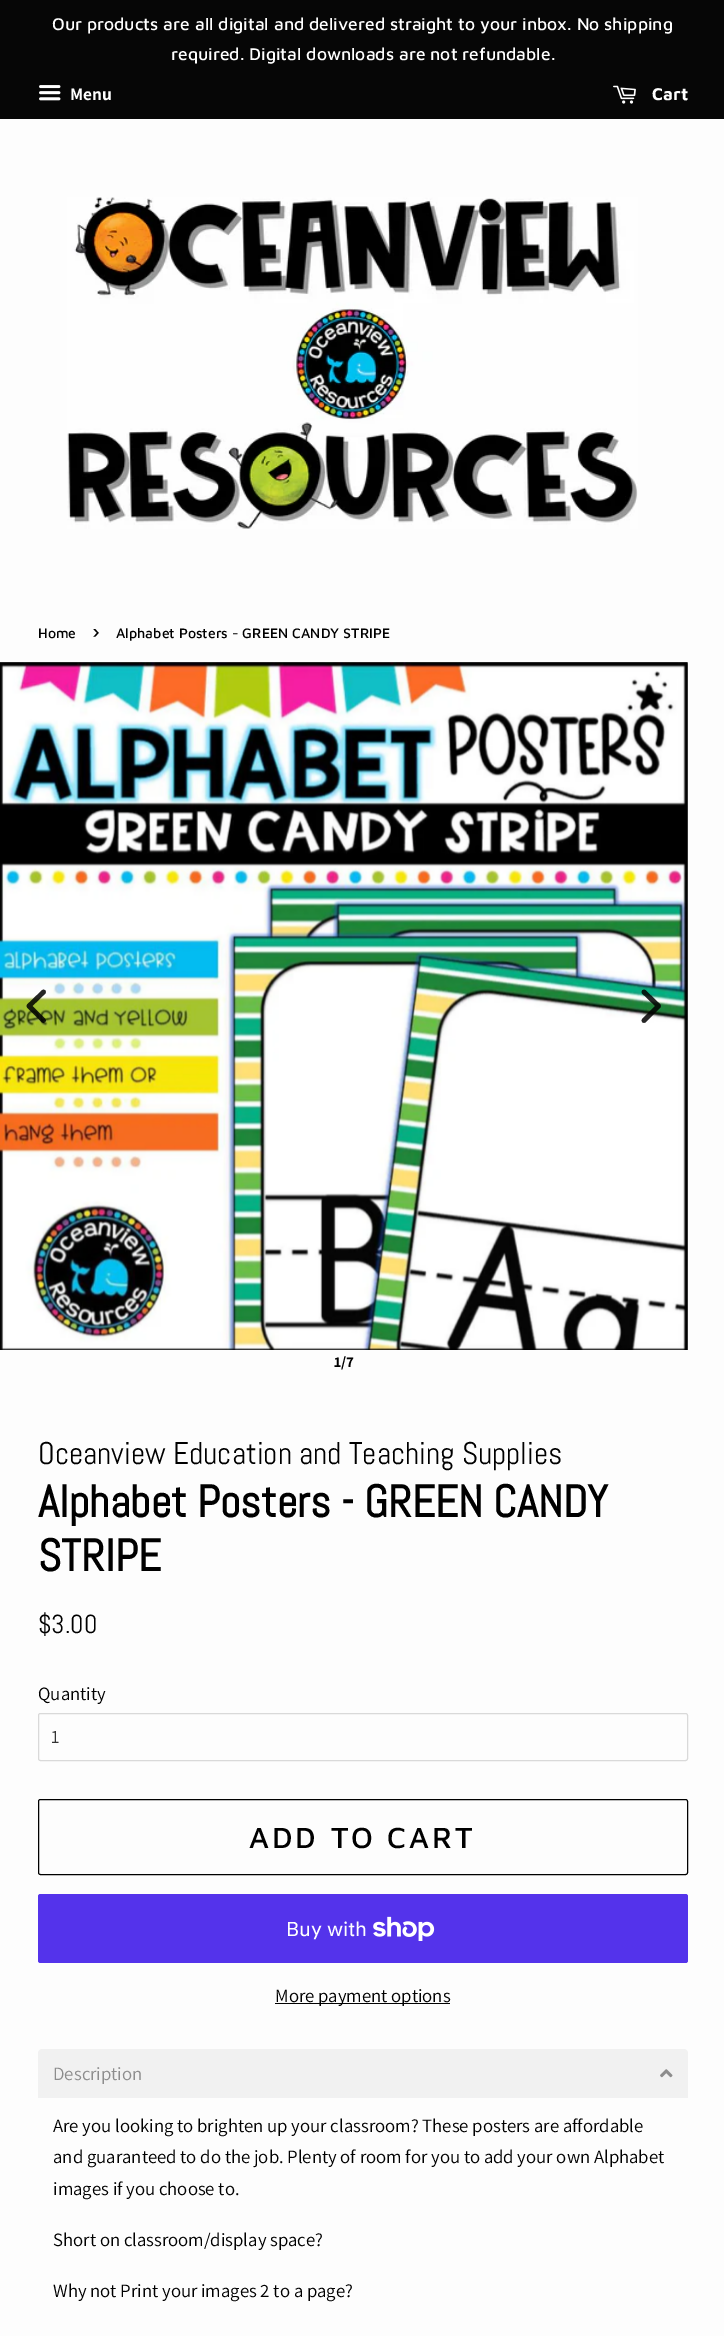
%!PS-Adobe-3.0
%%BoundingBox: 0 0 724 2336
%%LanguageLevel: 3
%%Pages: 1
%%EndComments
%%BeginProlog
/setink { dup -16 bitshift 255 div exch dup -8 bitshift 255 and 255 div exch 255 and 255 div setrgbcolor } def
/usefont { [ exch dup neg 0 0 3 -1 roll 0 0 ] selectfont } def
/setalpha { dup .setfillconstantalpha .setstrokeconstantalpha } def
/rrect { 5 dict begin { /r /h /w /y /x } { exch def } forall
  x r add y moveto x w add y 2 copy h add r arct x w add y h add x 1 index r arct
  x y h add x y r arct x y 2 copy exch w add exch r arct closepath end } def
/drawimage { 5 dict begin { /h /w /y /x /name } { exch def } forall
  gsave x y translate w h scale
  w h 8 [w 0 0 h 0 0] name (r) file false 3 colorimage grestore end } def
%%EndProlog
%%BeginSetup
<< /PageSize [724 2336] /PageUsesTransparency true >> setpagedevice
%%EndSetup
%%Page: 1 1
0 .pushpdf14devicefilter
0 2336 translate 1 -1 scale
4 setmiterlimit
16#FDFDFD setink
0 0 724 2336 rectfill
16#060606 setink
0 0 724 119 rectfill
/MavenPro-Medium 17.5 usefont
16#FFFFFF setink
52 30 moveto (Our products are all digital and delivered straight to your inbox. No shipping) show
171 60 moveto (required. Digital downloads are not refundable.) show
(img1.raw) 39 85 22 16 drawimage
/Assistant-Bold 17.5 usefont
70 100 moveto (Menu) show
(img2.raw) 613 85 23 19 drawimage
/MavenPro-Bold 17.5 usefont
652 100 moveto (Cart) show
(img3.raw) 67 197 571 332 drawimage
/MavenPro-Medium 14.1 usefont
16#000000 setink
38 638 moveto (Home) show
/MavenPro-Medium 20 usefont
92 638 moveto (›) show
/MavenPro-Medium 14.1 usefont
116 638 moveto (Alphabet Posters - GREEN CANDY STRIPE) show
(img4.raw) 0 662 688 688 drawimage
(img5.raw) 0 662 688 688 drawimage
0.85 setalpha
4.7 setlinewidth
1 setlinecap
1 setlinejoin
43.5 992 moveto 29 1006 lineto 43.5 1020.5 lineto stroke
644 992 moveto 658.5 1006 lineto 644 1020.5 lineto stroke
/Assistant-Bold 15 usefont
1 setalpha
334 1367 moveto (1/7) show
/Abel-Regular 31.25 usefont
38 1464 moveto (Oceanview Education and Teaching Supplies) show
/Abel-Bold 45 usefont
38 1517 moveto (Alphabet Posters - GREEN CANDY) show
38 1571 moveto (STRIPE) show
/Abel-Regular 26 usefont
38 1633 moveto ($3.00) show
/Assistant-Regular 18.75 usefont
38 1700 moveto (Quantity) show
16#D9D9D9 setink
1 setlinewidth
0 setlinecap
0 setlinejoin
38.5 1713.5 649 47 2 rrect stroke
16#333333 setink
51 1743 moveto (1) show
16#000000 setink
38.5 1799.5 649 75 2 rrect stroke
/MavenPro-Medium 30 usefont
249 1848 moveto 3 0 (ADD TO CART) ashow
16#5433EB setink
38 1894 650 69 2.5 rrect fill
/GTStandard-Regular 20 usefont
16#FFFFFF setink
286 1936 moveto (Buy with) show
(img6.raw) 373 1916 62 25 drawimage
16#000000 setink
275 2003 175 1 rectfill
/Assistant-Regular 18.75 usefont
275 2002 moveto (More payment options) show
16#F1F1F1 setink
42 2049 moveto 684 2049 lineto 686 2049 688 2051 688 2053 curveto 688 2098 lineto 38 2098 lineto 38 2053 lineto 38 2051 40 2049 42 2049 curveto closepath fill
16#8D8D8D setink
53 2080 moveto (Description) show
(img7.raw) 660 2069 13 9 drawimage
16#000000 setink
[
    [(Are you looking to brighten up your classroom? These posters are affordable) 53 2132]
    [(and guaranteed to do the job. Plenty of room for you to add your own Alphabet) 53 2163]
    [(images if you choose to.) 53 2195]
    [(Short on classroom/display space?) 53 2246]
    [(Why not Print your images 2 to a page?) 53 2297]
] { aload pop moveto show } forall
.poppdf14devicefilter showpage
%%EOF
